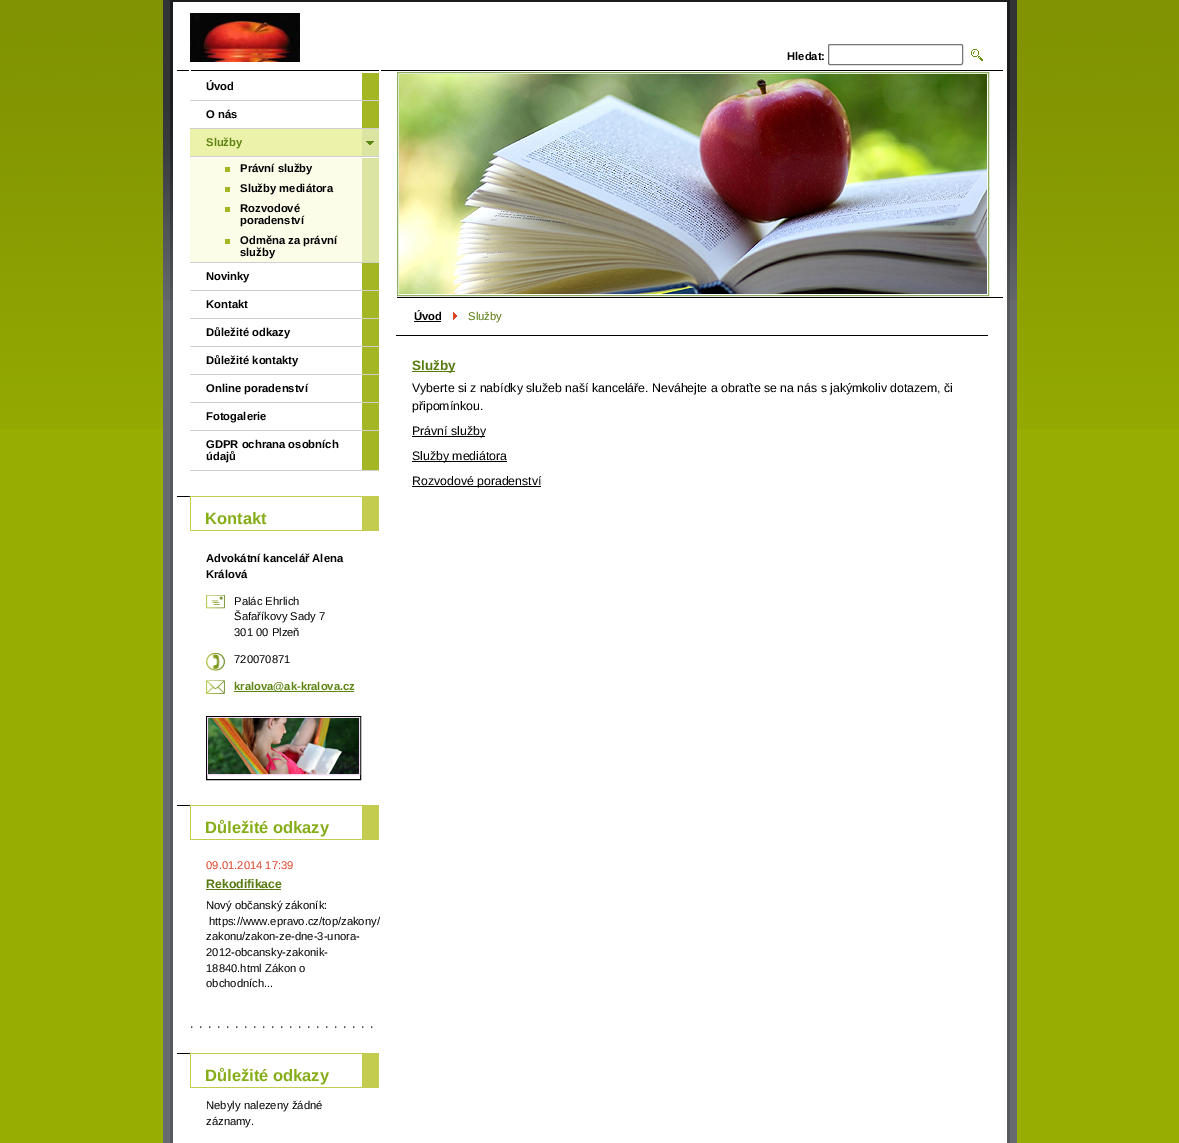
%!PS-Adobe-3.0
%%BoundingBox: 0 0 1179 1143
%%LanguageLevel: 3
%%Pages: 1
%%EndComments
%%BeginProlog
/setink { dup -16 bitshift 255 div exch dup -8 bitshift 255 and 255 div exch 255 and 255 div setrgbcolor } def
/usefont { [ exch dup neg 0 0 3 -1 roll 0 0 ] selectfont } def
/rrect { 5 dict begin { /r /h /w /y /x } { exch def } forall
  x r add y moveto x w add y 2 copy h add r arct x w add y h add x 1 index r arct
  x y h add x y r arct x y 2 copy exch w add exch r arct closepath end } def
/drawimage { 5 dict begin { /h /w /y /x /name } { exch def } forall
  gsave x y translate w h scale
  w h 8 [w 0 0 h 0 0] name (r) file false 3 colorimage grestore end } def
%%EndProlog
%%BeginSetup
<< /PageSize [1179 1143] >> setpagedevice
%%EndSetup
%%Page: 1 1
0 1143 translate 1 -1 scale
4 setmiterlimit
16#97AD01 setink
0 0 1179 1143 rectfill
(img1.raw) 0 0 1179 429 drawimage
16#676A6E setink
163 300 854 843 rectfill
(img2.raw) 170 300 840 843 drawimage
(img3.raw) 163 0 854 300 drawimage
16#FFFFFF setink
173 2 834 298 rectfill
(img4.raw) 190 13 110 49 drawimage
/LiberationSans-Bold 11.25 usefont
16#000000 setink
787 60 moveto (Hledat:) show
16#767676 setink
828.5 44.5 134 20 1.5 rrect stroke
(img5.raw) 971 49 12 12 drawimage
(img6.raw) 177 70 202 1 drawimage
16#A4B624 setink
362 73 17 397 rectfill
16#CFCFCF setink
190 100 189 1 rectfill
16#000000 setink
206 90 moveto (Úvod) show
16#CFCFCF setink
190 128 189 1 rectfill
16#000000 setink
206 118 moveto (O nás) show
(img7.raw) 362 129 17 27 drawimage
16#CFCFCF setink
190 262 189 1 rectfill
16#EDF2AA setink
190 129 172 27 rectfill
16#5D8511 setink
206 146 moveto (Služby) show
[
    [190 158 172 104 16#FCFDE8]
    [362 158 17 104 16#DBE4A0]
    [190 156 189 1 16#CFCFCF]
    [225 167 5 5 16#A4B624]
    [362 157 17 1 16#FFFFFF]
] { aload pop setink rectfill } forall
16#000000 setink
240 172 moveto (Právní služby) show
16#A4B624 setink
225 187 5 5 rectfill
16#000000 setink
240 192 moveto (Služby mediátora) show
16#A4B624 setink
225 207 5 5 rectfill
16#000000 setink
240 212 moveto (Rozvodové) show
240 224 moveto (poradenství) show
16#A4B624 setink
225 239 5 5 rectfill
16#000000 setink
240 244 moveto (Odměna za právní) show
240 256 moveto (služby) show
16#CFCFCF setink
190 290 189 1 rectfill
16#000000 setink
206 280 moveto (Novinky) show
16#CFCFCF setink
190 318 189 1 rectfill
16#000000 setink
206 308 moveto (Kontakt) show
16#CFCFCF setink
190 346 189 1 rectfill
16#000000 setink
206 336 moveto (Důležité odkazy) show
16#CFCFCF setink
190 374 189 1 rectfill
16#000000 setink
206 364 moveto (Důležité kontakty) show
16#CFCFCF setink
190 402 189 1 rectfill
16#000000 setink
206 392 moveto (Online poradenství) show
16#CFCFCF setink
190 430 189 1 rectfill
16#000000 setink
206 420 moveto (Fotogalerie) show
16#CFCFCF setink
190 470 189 1 rectfill
16#000000 setink
206 448 moveto (GDPR ochrana osobních) show
206 460 moveto (údajů) show
(img8.raw) 177 496 13 1 drawimage
[
    [190 496 172 1 16#C3CC4E]
    [362 496 17 34 16#C3CC4E]
    [190 530 189 1 16#C3CC4E]
    [190 496 1 35 16#C3CC4E]
] { aload pop setink rectfill } forall
/LiberationSans-Bold 16.5 usefont
16#86AD17 setink
205 524 moveto (Kontakt) show
/LiberationSans-Bold 11.25 usefont
16#000000 setink
206 562 moveto (Advokátní kancelář Alena) show
206 578 moveto (Králová) show
(img9.raw) 206 595 19 14 drawimage
/LiberationSans-Regular 11.25 usefont
[
    [(Palác Ehrlich) 234 605]
    [(Šafaříkovy Sady 7) 234 620]
    [(301 00 Plzeň) 234 636]
] { aload pop moveto show } forall
(img10.raw) 206 653 19 18 drawimage
234 663 moveto (720070871) show
(img11.raw) 206 680 19 14 drawimage
16#5D8511 setink
234 691 120 1 rectfill
/LiberationSans-Bold 11.25 usefont
234 690 moveto (kralova@ak-kralova.cz) show
16#000000 setink
206.5 716.5 154 63 rectstroke
16#F4D8F7 setink
207.5 717.5 152 57 rectstroke
(img12.raw) 208 718 151 56 drawimage
(img8.raw) 177 805 13 1 drawimage
[
    [190 805 172 1 16#C3CC4E]
    [362 805 17 34 16#C3CC4E]
    [190 839 189 1 16#C3CC4E]
    [190 805 1 35 16#C3CC4E]
] { aload pop setink rectfill } forall
/LiberationSans-Bold 16.5 usefont
16#86AD17 setink
205 833 moveto (Důležité odkazy) show
/LiberationSans-Regular 11.25 usefont
16#DA4125 setink
206 869 moveto (09.01.2014 17:39) show
/LiberationSans-Bold 12.3 usefont
16#567A0E setink
206 888 moveto (Rekodifikace) show
16#557B0D setink
206 889 75 1 rectfill
/LiberationSans-Regular 11.25 usefont
16#000000 setink
[
    [(Nový občanský zákoník:) 206 909]
    [(https://www.epravo.cz/top/zakony/) 209 925]
    [(zakonu/zakon-ze-dne-3-unora-) 206 940]
    [(2012-obcansky-zakonik-) 206 956]
    [(18840.html Zákon o) 206 972]
    [(obchodních...) 206 987]
] { aload pop moveto show } forall
(img13.raw) 191 1026 182 2 drawimage
(img8.raw) 177 1053 13 1 drawimage
[
    [190 1053 172 1 16#C3CC4E]
    [362 1053 17 34 16#C3CC4E]
    [190 1087 189 1 16#C3CC4E]
    [190 1053 1 35 16#C3CC4E]
] { aload pop setink rectfill } forall
/LiberationSans-Bold 16.5 usefont
16#86AD17 setink
205 1081 moveto (Důležité odkazy) show
/LiberationSans-Regular 11.25 usefont
16#000000 setink
206 1109 moveto (Nebyly nalezeny žádné) show
206 1125 moveto (záznamy.) show
381 70 622 1 rectfill
397 297 606 1 rectfill
16#8EAD60 setink
397.5 72.5 591 223 rectstroke
(img14.raw) 399 74 588 220 drawimage
16#000000 setink
396 335 592 1 rectfill
/LiberationSans-Bold 11.25 usefont
414 320 moveto (Úvod) show
414 321 27 1 rectfill
(img15.raw) 453 312 4 8 drawimage
/LiberationSans-Regular 11.25 usefont
16#567A0E setink
468 320 moveto (Služby) show
412 371 43 1 rectfill
/LiberationSans-Bold 13.5 usefont
412 370 moveto (Služby) show
/LiberationSans-Regular 12.3 usefont
16#000000 setink
412 392 moveto (Vyberte si z nabídky služeb naší kanceláře. Neváhejte a obraťte se na nás s jakýmkoliv dotazem, či) show
412 410 moveto (připomínkou.) show
412 436 73 1 rectfill
412 435 moveto (Právní služby) show
412 461 95 1 rectfill
412 460 moveto (Služby mediátora) show
412 486 129 1 rectfill
412 485 moveto (Rozvodové poradenství) show
showpage
%%EOF
